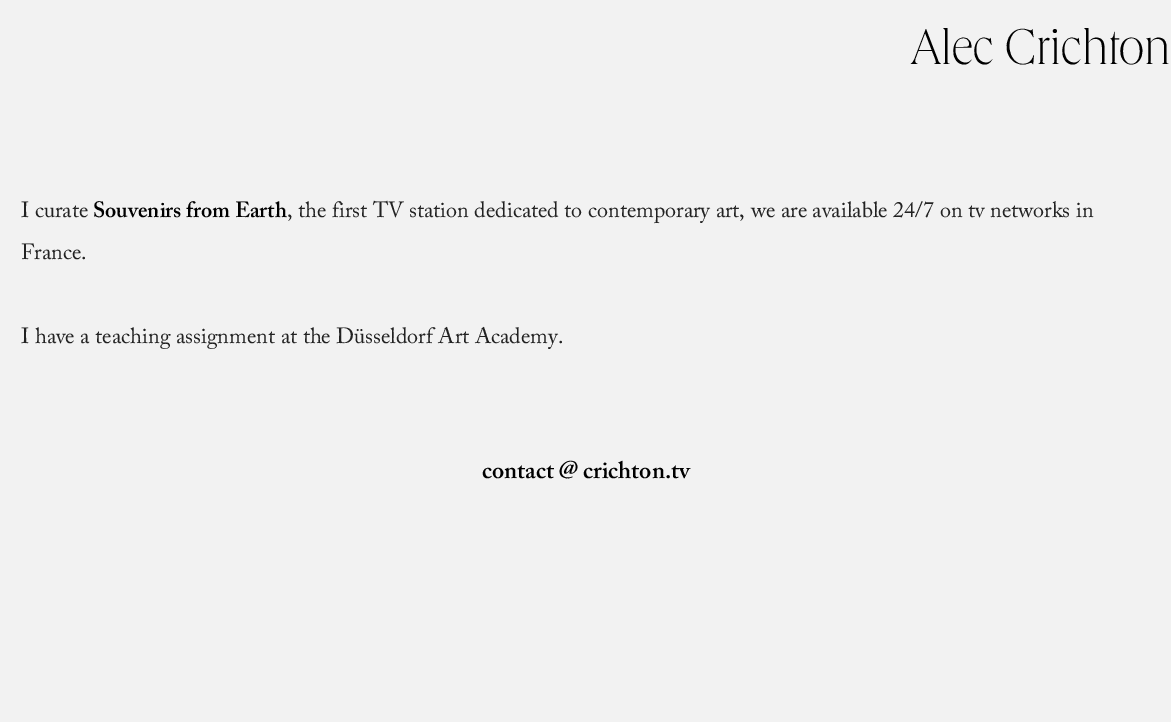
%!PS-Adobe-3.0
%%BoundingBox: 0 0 1171 722
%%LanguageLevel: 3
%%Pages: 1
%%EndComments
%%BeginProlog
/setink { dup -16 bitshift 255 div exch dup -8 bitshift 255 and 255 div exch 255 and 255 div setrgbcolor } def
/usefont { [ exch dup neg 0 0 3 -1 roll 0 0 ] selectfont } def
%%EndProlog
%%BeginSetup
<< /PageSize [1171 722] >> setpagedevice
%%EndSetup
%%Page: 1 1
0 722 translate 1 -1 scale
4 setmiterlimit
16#F2F2F2 setink
0 0 1171 722 rectfill
/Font-Thin 52 usefont
16#000000 setink
911 64 moveto (Alec Crichton) show
/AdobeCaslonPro-Regular 22 usefont
16#222222 setink
21 217 moveto (I curate) show
/AdobeCaslonPro-SemiBold 22 usefont
16#000000 setink
93 217 moveto (Souvenirs from Earth) show
/AdobeCaslonPro-Regular 22 usefont
16#222222 setink
[
    [(, the first TV station dedicated to contemporary art, we are available 24/7 on tv networks in) 287 217]
    [(France.) 21 259]
    [(I have a teaching assignment at the Düsseldorf Art Academy.) 21 343]
] { aload pop moveto show } forall
/AdobeCaslonPro-SemiBold 24 usefont
16#000000 setink
482 478 moveto (contact @ crichton.tv) show
showpage
%%EOF
